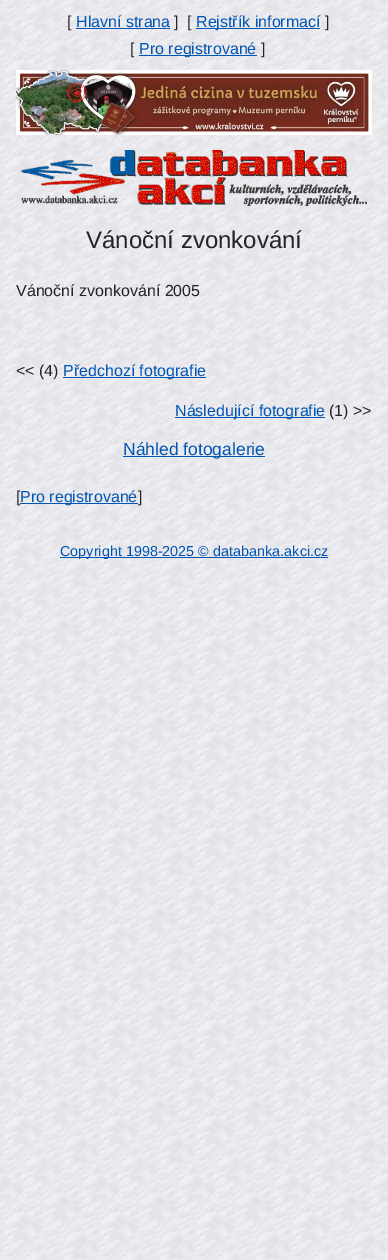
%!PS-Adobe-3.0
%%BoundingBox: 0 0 388 1260
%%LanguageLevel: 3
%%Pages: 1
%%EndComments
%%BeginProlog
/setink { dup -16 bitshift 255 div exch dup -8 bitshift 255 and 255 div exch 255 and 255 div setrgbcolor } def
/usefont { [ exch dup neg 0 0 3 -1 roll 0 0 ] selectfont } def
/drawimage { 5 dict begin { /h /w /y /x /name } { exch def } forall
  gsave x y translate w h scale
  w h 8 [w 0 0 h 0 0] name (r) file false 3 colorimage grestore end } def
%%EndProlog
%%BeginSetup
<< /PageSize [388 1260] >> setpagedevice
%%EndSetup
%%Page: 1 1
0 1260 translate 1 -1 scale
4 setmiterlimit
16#FFFFFF setink
0 0 388 1260 rectfill
(img1.raw) 0 0 388 1260 drawimage
/LiberationSans-Regular 16 usefont
16#212529 setink
67 27 moveto ([) show
16#0056B3 setink
76 27 moveto (Hlavní strana) show
76 28 94 1 rectfill
16#212529 setink
174 27 moveto (]) show
187 27 moveto ([) show
16#0056B3 setink
196 28 124 1 rectfill
196 27 moveto (Rejstřík informací) show
16#212529 setink
325 27 moveto (]) show
130 54 moveto ([) show
16#0056B3 setink
139 55 118 1 rectfill
139 54 moveto (Pro registrované) show
16#212529 setink
261 54 moveto (]) show
(img2.raw) 16 70 356 65 drawimage
(img3.raw) 21 150 346 56 drawimage
/LiberationSans-Regular 24 usefont
86 248 moveto (Vánoční zvonkování) show
/LiberationSans-Regular 16 usefont
16 296 moveto (Vánoční zvonkování 2005) show
16 376 moveto (<< \(4\)) show
16#0056B3 setink
63 377 143 1 rectfill
63 376 moveto (Předchozí fotografie) show
175 417 150 1 rectfill
175 416 moveto (Následující fotografie) show
16#212529 setink
329 416 moveto (\(1\) >>) show
16#0056B3 setink
123 456 142 1 rectfill
/LiberationSans-Regular 17.5 usefont
123 455 moveto (Náhled fotogalerie) show
/LiberationSans-Regular 16 usefont
16#212529 setink
16 502 moveto ([) show
16#0056B3 setink
20 503 118 1 rectfill
20 502 moveto (Pro registrované) show
16#212529 setink
138 502 moveto (]) show
16#0056B3 setink
60 557 268 1 rectfill
/LiberationSans-Regular 14.4 usefont
60 556 moveto (Copyright 1998-2025 © databanka.akci.cz) show
showpage
%%EOF
